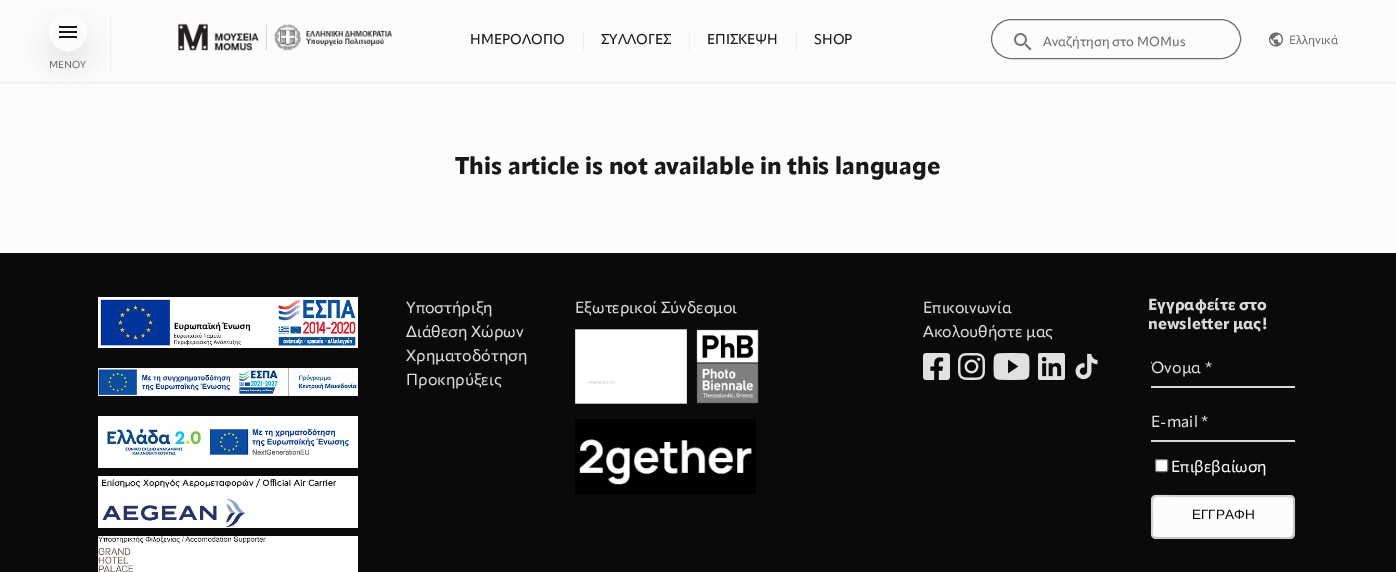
%!PS-Adobe-3.0
%%BoundingBox: 0 0 1396 572
%%LanguageLevel: 3
%%Pages: 1
%%EndComments
%%BeginProlog
/setink { dup -16 bitshift 255 div exch dup -8 bitshift 255 and 255 div exch 255 and 255 div setrgbcolor } def
/usefont { [ exch dup neg 0 0 3 -1 roll 0 0 ] selectfont } def
/setalpha { dup .setfillconstantalpha .setstrokeconstantalpha } def
/rrect { 5 dict begin { /r /h /w /y /x } { exch def } forall
  x r add y moveto x w add y 2 copy h add r arct x w add y h add x 1 index r arct
  x y h add x y r arct x y 2 copy exch w add exch r arct closepath end } def
/softshadow { 12 dict begin { /a /b /q /h /w /y /x } { exch def } forall gsave /was 0 def
  9 -2 -9 { dup b mul 4 div /e exch def 1 sub .425 mul 2.718 exch exp 1 add a .99 .min exch div /now exch def
    1 1 now sub 1 was sub div sub setalpha /was now def
    w h .min e 2 mul add 0 gt { x e sub y e sub w e 2 mul add h e 2 mul add
      q e add b .6 mul add w h .min 2 div e add .min 0 .max rrect fill } if } for grestore end } def
/drawimage { 5 dict begin { /h /w /y /x /name } { exch def } forall
  gsave x y translate w h scale
  w h 8 [w 0 0 h 0 0] name (r) file false 3 colorimage grestore end } def
%%EndProlog
%%BeginSetup
<< /PageSize [1396 572] /PageUsesTransparency true >> setpagedevice
%%EndSetup
%%Page: 1 1
0 .pushpdf14devicefilter
0 572 translate 1 -1 scale
4 setmiterlimit
16#FCFCFC setink
0 0 1396 572 rectfill
16#F0F0F0 setink
0 82 1396 1 rectfill
(img1.raw) 178 23 215 28 drawimage
/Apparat-Medium 14 usefont
16#191919 setink
470 44 moveto (ΗΜΕΡΟΛΟΓΙΟ) show
16#F0F0F0 setink
583 30 1 22 rectfill
16#191919 setink
601 44 moveto (ΣΥΛΛΟΓΕΣ) show
16#F0F0F0 setink
689 30 1 22 rectfill
16#191919 setink
707 44 moveto (ΕΠΙΣΚΕΨΗ) show
16#F0F0F0 setink
796 30 1 22 rectfill
16#191919 setink
814 44 moveto (SHOP) show
(img2.raw) 1014 33 18 18 drawimage
16#707070 setink
991.5 19.5 249 39 19.5 rrect stroke
/Apparat-Medium 13 usefont
1043 46 moveto (Αναζήτηση στο MOMus) show
(img3.raw) 1268 32 16 15 drawimage
/Apparat-Medium 12 usefont
1289 44 moveto (Ελληνικά) show
16#F0F0F0 setink
110 14 1 58 rectfill
16#F6F6F6 setink
0 83 1396 1 rectfill
gsave
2 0 moveto 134 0 lineto 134 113 lineto 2 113 lineto closepath 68 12 moveto 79 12 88 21 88 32 curveto 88 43 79 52 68 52 curveto 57 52 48 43 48 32 curveto 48 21 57 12 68 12 curveto closepath eoclip newpath
16#8A959E setink
48 27 40 40 20 15 0.18 softshadow
grestore
(img4.raw) 59 26 18 12 drawimage
/Apparat-Medium 10 usefont
16#707070 setink
49 68 moveto (ΜΕΝΟΥ) show
/Apparat-ExtraBold 24 usefont
16#191919 setink
455 174 moveto (This article is not available in this language) show
16#0A0A0A setink
0 253 1396 319 rectfill
(img5.raw) 98 297 260 51 drawimage
(img6.raw) 98 368 260 28 drawimage
(img7.raw) 98 416 260 52 drawimage
(img8.raw) 98 476 260 52 drawimage
(img9.raw) 98 536 260 36 drawimage
16#101010 setink
406 314 87 1 rectfill
/Apparat-Medium 16 usefont
16#D9D9D9 setink
406 313 moveto (Υποστήριξη) show
16#101010 setink
406 338 117 1 rectfill
16#D9D9D9 setink
406 337 moveto (Διάθεση Χώρων) show
16#101010 setink
406 362 121 1 rectfill
16#D9D9D9 setink
406 361 moveto (Χρηματοδότηση) show
16#101010 setink
406 386 96 1 rectfill
16#D9D9D9 setink
406 385 moveto (Προκηρύξεις) show
575 313 moveto (Εξωτερικοί Σύνδεσμοι) show
(img10.raw) 575 329 112 75 drawimage
(img11.raw) 696 329 63 75 drawimage
(img12.raw) 575 419 181 75 drawimage
923 313 moveto (Επικοινωνία) show
16#101010 setink
923 314 89 1 rectfill
16#D9D9D9 setink
923 337 moveto (Ακολουθήστε μας) show
(img13.raw) 923 353 27 27 drawimage
(img14.raw) 958 353 27 27 drawimage
(img15.raw) 993 353 37 27 drawimage
(img16.raw) 1038 353 27 27 drawimage
(img17.raw) 1075 353 23 27 drawimage
/Apparat-ExtraBold 16 usefont
1148 310 moveto (Εγγραφείτε στο) show
1148 329 moveto (newsletter μας!) show
gsave
1151 358 61 23 rectclip
/Apparat-Medium 16 usefont
1151 373 moveto (Όνομα) show
grestore
/Apparat-Medium 16 usefont
1205 373 moveto (*) show
1151 386 144 2 rectfill
1151 427 moveto (E-mail) show
1201 427 moveto (*) show
1151 440 144 2 rectfill
16#FFFFFF setink
1155.5 459.5 12 12 1.5 rrect gsave fill grestore
16#767676 setink
stroke
16#FCFCFC setink
1171 472 moveto (Επιβεβαίωση) show
1151 495 144 44 5 rrect fill
0.3 setalpha
16#4F4F4F setink
2 setlinewidth
1293 497 moveto 1295 499 1294 503.5 1294 505.5 curveto 1294 517 lineto 1294 543.5 1297.5 538 1267.5 538 curveto 1156 538 lineto 1153 537 lineto stroke
16#767676 setink
1153 537 moveto 1151 535 1152 530.5 1152 528.5 curveto 1152 517 lineto 1152 490.5 1148.5 496 1178.5 496 curveto 1290 496 lineto 1293 497 lineto stroke
/LiberationSans-Regular 13.5 usefont
1 setalpha
16#0A0A0A setink
1192 519 moveto (ΕΓΓΡΑΦΗ) show
.poppdf14devicefilter showpage
%%EOF
